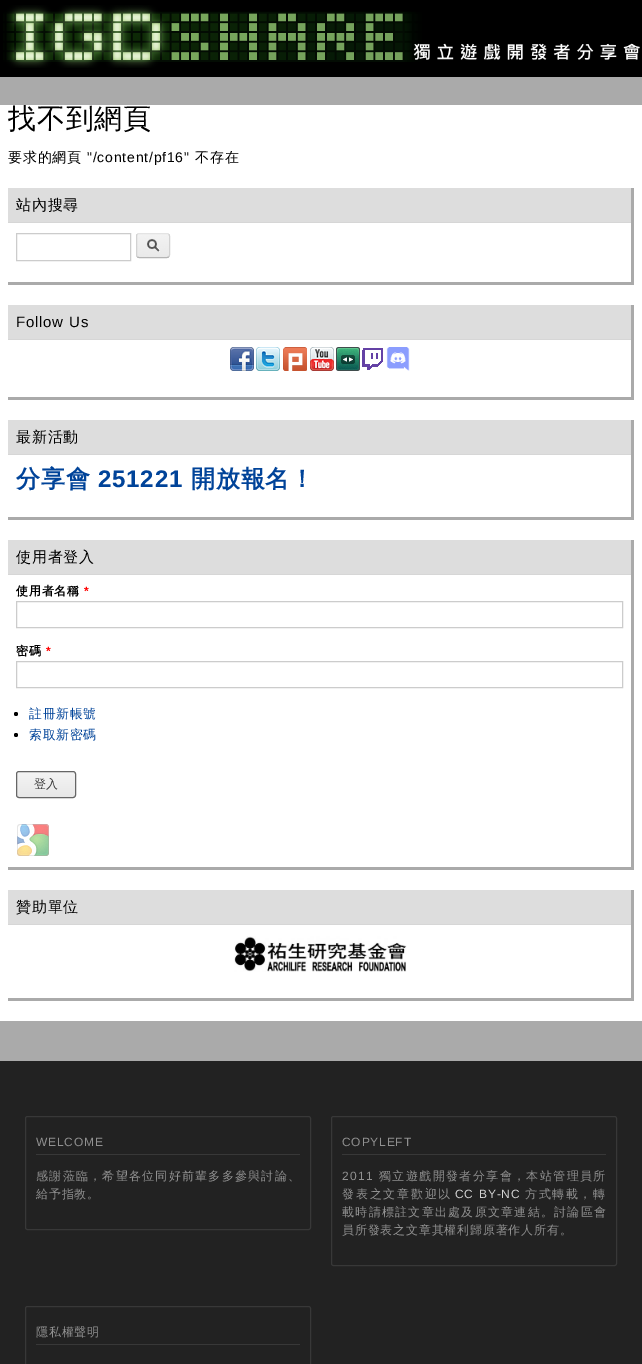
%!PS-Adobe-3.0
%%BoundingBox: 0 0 642 1364
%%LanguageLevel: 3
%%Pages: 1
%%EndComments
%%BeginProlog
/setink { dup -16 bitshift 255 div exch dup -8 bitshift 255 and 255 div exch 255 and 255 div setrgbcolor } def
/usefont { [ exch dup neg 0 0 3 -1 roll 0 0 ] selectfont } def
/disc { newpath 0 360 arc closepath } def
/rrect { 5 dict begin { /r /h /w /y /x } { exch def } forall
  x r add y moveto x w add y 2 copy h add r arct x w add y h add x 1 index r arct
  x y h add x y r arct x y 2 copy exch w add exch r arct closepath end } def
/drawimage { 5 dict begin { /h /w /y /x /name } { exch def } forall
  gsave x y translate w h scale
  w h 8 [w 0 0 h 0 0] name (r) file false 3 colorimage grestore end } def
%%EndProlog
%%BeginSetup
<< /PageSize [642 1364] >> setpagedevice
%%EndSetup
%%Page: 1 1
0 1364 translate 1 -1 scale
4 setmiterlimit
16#AAAAAA setink
0 0 642 1364 rectfill
16#000000 setink
0 0 642 77 rectfill
(img1.raw) 3 5 637 63 drawimage
16#FFFFFF setink
0 105 642 916 rectfill
/WenQuanYiZenHei-Medium 28 usefont
16#000000 setink
8 128 moveto 0.8 0 (找不到網頁) ashow
/WenQuanYiZenHei-Medium 14 usefont
8 162 moveto 0.8 0 (要求的網頁) ashow
/LiberationSans-Regular 14 usefont
87 162 moveto 0.8 0 ("/content/pf16") ashow
/WenQuanYiZenHei-Medium 14 usefont
195 162 moveto 0.8 0 (不存在) ashow
[
    [631 188 3 97 16#AAAAAA]
    [8 282 626 3 16#AAAAAA]
    [8 188 623 34 16#DDDDDD]
    [8 222 623 1 16#D6D6D6]
] { aload pop setink rectfill } forall
/WenQuanYiZenHei-Medium 15 usefont
16#000000 setink
16 210 moveto 0.8 0 (站內搜尋) ashow
16#CCCCCC setink
16.5 233.5 114 27 rectstroke
(img2.raw) 136 234 34 24 drawimage
16#E4E4E4 setink
137 234 moveto 137.5 234 138.5 233.5 139 233.5 curveto 167 233.5 lineto 167.5 233.5 168.5 234 169 234 curveto stroke
16#D2D2D2 setink
169 234 moveto 169 234.5 169.5 235.5 169.5 236 curveto 169.5 255 lineto 169.5 255.5 169 256.5 169 257 curveto stroke
16#B4B4B4 setink
169 257 moveto 168.5 257 167.5 257.5 167 257.5 curveto 139 257.5 lineto 138.5 257.5 137.5 257 137 257 curveto stroke
16#D2D2D2 setink
137 257 moveto 137 256.5 136.5 255.5 136.5 255 curveto 136.5 236 lineto 136.5 235.5 137 234.5 137 234 curveto stroke
[
    [631 305 3 95 16#AAAAAA]
    [8 397 626 3 16#AAAAAA]
    [8 305 623 34 16#DDDDDD]
    [8 339 623 1 16#D6D6D6]
] { aload pop setink rectfill } forall
/LiberationSans-Regular 15 usefont
16#000000 setink
16 327 moveto 0.8 0 (Follow Us) ashow
(img3.raw) 230 347 24 24 drawimage
(img4.raw) 256 347 24 24 drawimage
(img5.raw) 283 347 24 24 drawimage
(img6.raw) 310 347 24 24 drawimage
(img7.raw) 336 347 24 24 drawimage
(img8.raw) 362 348 21 22 drawimage
(img9.raw) 386 347 24 24 drawimage
[
    [631 420 3 100 16#AAAAAA]
    [8 517 626 3 16#AAAAAA]
    [8 420 623 34 16#DDDDDD]
    [8 454 623 1 16#D6D6D6]
] { aload pop setink rectfill } forall
/WenQuanYiZenHei-Medium 15 usefont
16#000000 setink
16 442 moveto 0.8 0 (最新活動) ashow
/WenQuanYiZenHei-Bold 24 usefont
16#004399 setink
16 487 moveto 0.8 0 (分享會) ashow
/LiberationSans-Bold 24 usefont
98 487 moveto 0.8 0 (251221) ashow
/WenQuanYiZenHei-Bold 24 usefont
191 487 moveto 0.8 0 (開放報名！) ashow
[
    [631 540 3 330 16#AAAAAA]
    [8 867 626 3 16#AAAAAA]
    [8 540 623 34 16#DDDDDD]
    [8 574 623 1 16#D6D6D6]
] { aload pop setink rectfill } forall
/WenQuanYiZenHei-Medium 15 usefont
16#000000 setink
16 562 moveto 0.8 0 (使用者登入) ashow
/WenQuanYiZenHei-Bold 12 usefont
16 595 moveto 0.8 0 (使用者名稱) ashow
/LiberationSans-Bold 12 usefont
16#FF0000 setink
84 595 moveto 0.8 0 (*) ashow
16#CCCCCC setink
16.5 601.5 606 26 rectstroke
/WenQuanYiZenHei-Bold 12 usefont
16#000000 setink
16 655 moveto 0.8 0 (密碼) ashow
/LiberationSans-Bold 12 usefont
16#FF0000 setink
46 655 moveto 0.8 0 (*) ashow
16#CCCCCC setink
16.5 661.5 606 26 rectstroke
16#000000 setink
16 714 2 disc fill
/WenQuanYiZenHei-Medium 12.75 usefont
16#004399 setink
29 718 moveto 0.8 0 (註冊新帳號) ashow
16#000000 setink
16 735 2 disc fill
16#004399 setink
29 739 moveto 0.8 0 (索取新密碼) ashow
(img10.raw) 16 772 60 26 drawimage
16#666666 setink
16.5 771.5 59 26 2.5 rrect stroke
/WenQuanYiZenHei-Medium 12 usefont
16#3A3A3A setink
34 788 moveto (登入) show
(img11.raw) 17 824 32 32 drawimage
[
    [631 890 3 111 16#AAAAAA]
    [8 998 626 3 16#AAAAAA]
    [8 890 623 34 16#DDDDDD]
    [8 924 623 1 16#D6D6D6]
] { aload pop setink rectfill } forall
/WenQuanYiZenHei-Medium 15 usefont
16#000000 setink
16 912 moveto 0.8 0 (贊助單位) ashow
(img12.raw) 234 936 173 36 drawimage
16#222222 setink
0 1061 642 303 rectfill
16#383838 setink
25.5 1116.5 285 113 2 rrect stroke
36 1154 264 1 rectfill
/LiberationSans-Regular 12 usefont
16#919191 setink
36 1146 moveto 0.8 0 (WELCOME) ashow
/WenQuanYiZenHei-Medium 12 usefont
36 1180 moveto 1.25 0 (感謝蒞臨，希望各位同好前輩多多參與討論、) ashow
36 1198 moveto 0.8 0 (給予指教。) ashow
16#383838 setink
331.5 1116.5 285 149 2 rrect stroke
342 1154 264 1 rectfill
/LiberationSans-Regular 12 usefont
16#919191 setink
342 1146 moveto 0.8 0 (COPYLEFT) ashow
342 1180 moveto 1.4 0 (2011) ashow
/WenQuanYiZenHei-Medium 12 usefont
379 1180 moveto 1.4 0 (獨立遊戲開發者分享會，本站管理員所) ashow
342 1198 moveto 1.75 0 (發表之文章歡迎以) ashow
/LiberationSans-Regular 12 usefont
16#D3D3D3 setink
455 1198 moveto 1 0 32 0.8 0 (CC BY-NC) awidthshow
/WenQuanYiZenHei-Medium 12 usefont
16#919191 setink
525 1198 moveto 1.5 0 (方式轉載，轉) ashow
342 1216 moveto 1.25 0 (載時請標註文章出處及原文章連結。討論區會) ashow
342 1234 moveto 0.8 0 (員所發表之文章其權利歸原著作人所有。) ashow
16#383838 setink
25.5 1306.5 285 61 2 rrect stroke
36 1344 264 1 rectfill
16#919191 setink
36 1336 moveto 0.8 0 (隱私權聲明) ashow
showpage
%%EOF
